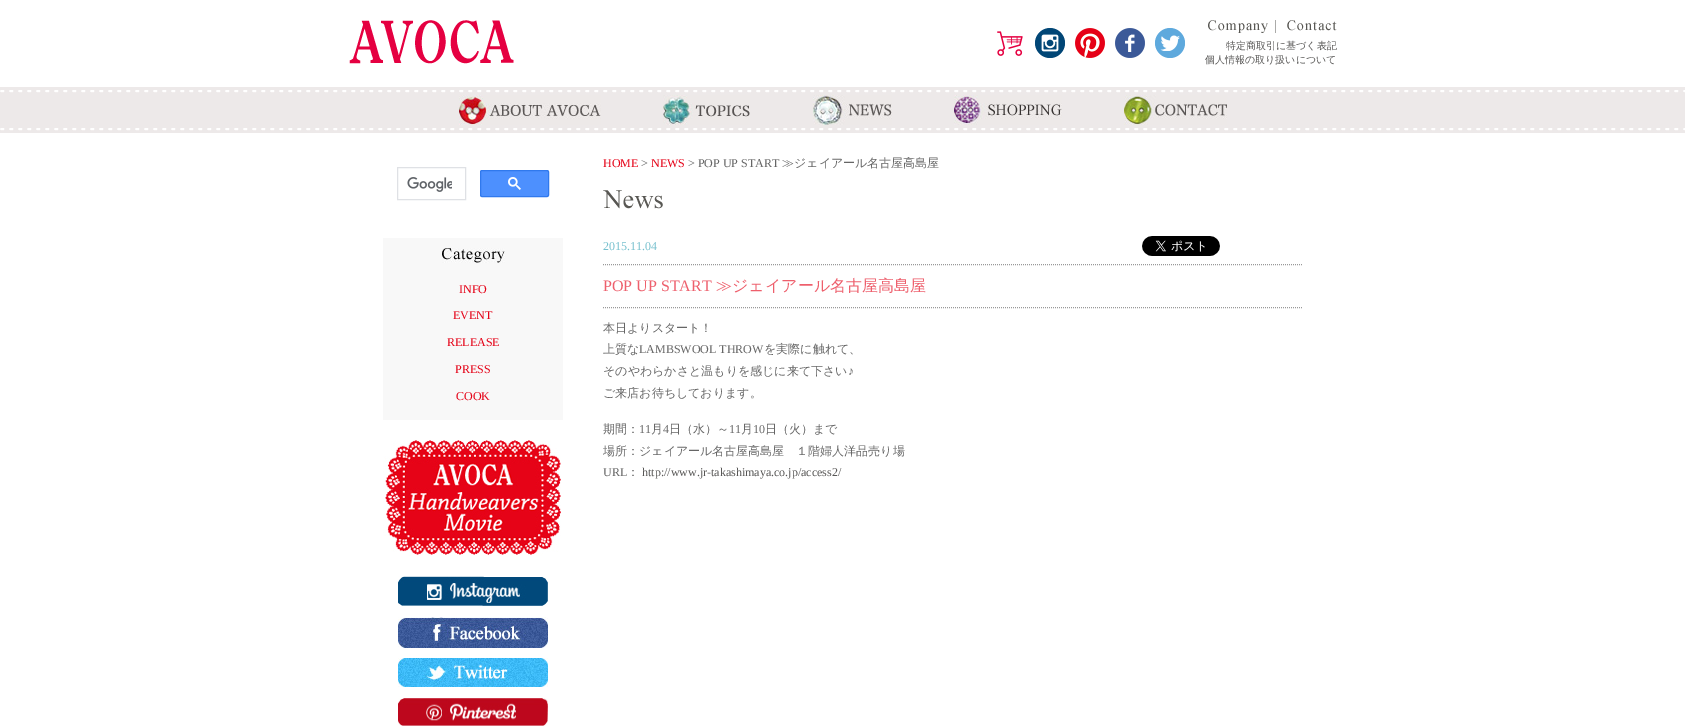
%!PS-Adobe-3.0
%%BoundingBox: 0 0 1685 726
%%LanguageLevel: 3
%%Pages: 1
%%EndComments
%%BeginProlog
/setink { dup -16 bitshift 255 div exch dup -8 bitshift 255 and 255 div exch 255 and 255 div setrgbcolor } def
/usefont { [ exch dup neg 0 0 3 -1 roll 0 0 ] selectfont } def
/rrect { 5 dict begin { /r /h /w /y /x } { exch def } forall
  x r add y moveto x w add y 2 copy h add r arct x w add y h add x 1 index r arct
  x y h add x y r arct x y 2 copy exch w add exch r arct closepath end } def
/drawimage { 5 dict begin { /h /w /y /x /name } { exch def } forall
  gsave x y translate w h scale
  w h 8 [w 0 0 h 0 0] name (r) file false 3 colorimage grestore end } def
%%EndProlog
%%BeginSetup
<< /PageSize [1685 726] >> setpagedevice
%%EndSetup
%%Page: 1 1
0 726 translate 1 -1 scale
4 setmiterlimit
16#FFFFFF setink
0 0 1685 726 rectfill
(img1.raw) 349 20 165 44 drawimage
(img2.raw) 997 31 26 25 drawimage
(img3.raw) 1035 28 30 30 drawimage
(img4.raw) 1075 28 30 30 drawimage
(img5.raw) 1115 28 30 30 drawimage
(img6.raw) 1155 28 30 30 drawimage
(img7.raw) 1208 20 68 13 drawimage
(img8.raw) 1287 20 50 11 drawimage
/WenQuanYiZenHei-Medium 10 usefont
16#585756 setink
1226 49 moveto (特定商取引に基づく表記) show
1205 63 moveto (個人情報の取り扱いについて) show
(img9.raw) 0 87 1685 46 drawimage
(img10.raw) 459 95 142 30 drawimage
(img11.raw) 663 95 87 30 drawimage
(img12.raw) 813 95 79 30 drawimage
(img13.raw) 954 95 108 30 drawimage
(img14.raw) 1124 95 103 30 drawimage
16#DFE1E5 setink
397.5 167.5 68 32 rectstroke
(img15.raw) 407 177 45 15 drawimage
16#4D90FE setink
480.5 170.5 68 26 1.5 rrect gsave fill grestore
16#3079ED setink
stroke
(img16.raw) 508 177 13 13 drawimage
16#F8F8F8 setink
383 238 180 182 rectfill
(img17.raw) 442 248 63 15 drawimage
/LiberationSerif-Regular 12 usefont
16#E50217 setink
[
    [(INFO) 459 293]
    [(EVENT) 453 319]
    [(RELEASE) 447 346]
    [(PRESS) 455 373]
    [(COOK) 456 400]
] { aload pop moveto show } forall
(img18.raw) 383 440 178 116 drawimage
(img19.raw) 398 576 150 31 drawimage
(img20.raw) 398 617 150 31 drawimage
(img21.raw) 398 658 150 29 drawimage
(img22.raw) 398 698 150 28 drawimage
603 167 moveto (HOME) show
16#666666 setink
641 167 moveto (>) show
16#E50217 setink
651 167 moveto (NEWS) show
16#666666 setink
688 167 moveto (> POP UP START) show
/WenQuanYiZenHei-Medium 12 usefont
782 167 moveto (≫ジェイアール名古屋高島屋) show
(img23.raw) 603 190 60 19 drawimage
16#999999 setink
[1 1] 0 setdash
603 264.5 moveto 1302 264.5 lineto stroke
/LiberationSerif-Regular 12 usefont
16#76C0CE setink
603 250 moveto (2015.11.04) show
(img24.raw) 1142 236 78 20 drawimage
16#999999 setink
603 307.5 moveto 1302 307.5 lineto stroke
/LiberationSerif-Regular 16 usefont
16#EE5F6C setink
603 291 moveto (POP UP START) show
/WenQuanYiZenHei-Medium 16 usefont
716 291 moveto (≫ジェイアール名古屋高島屋) show
/WenQuanYiZenHei-Medium 12 usefont
16#666666 setink
603 332 moveto (本日よりスタート！) show
603 353 moveto (上質な) show
/LiberationSerif-Regular 12 usefont
639 353 moveto (LAMBSWOOL THROW) show
/WenQuanYiZenHei-Medium 12 usefont
764 353 moveto (を実際に触れて、) show
603 375 moveto (そのやわらかさと温もりを感じに来て下さい) show
/LiberationSerif-Regular 12 usefont
848 375 moveto (♪) show
/WenQuanYiZenHei-Medium 12 usefont
603 397 moveto (ご来店お待ちしております。) show
603 433 moveto (期間：) show
/LiberationSerif-Regular 12 usefont
639 433 moveto (11) show
/WenQuanYiZenHei-Medium 12 usefont
651 433 moveto (月) show
/LiberationSerif-Regular 12 usefont
663 433 moveto (4) show
/WenQuanYiZenHei-Medium 12 usefont
669 433 moveto (日（水）～) show
/LiberationSerif-Regular 12 usefont
729 433 moveto (11) show
/WenQuanYiZenHei-Medium 12 usefont
741 433 moveto (月) show
/LiberationSerif-Regular 12 usefont
753 433 moveto (10) show
/WenQuanYiZenHei-Medium 12 usefont
765 433 moveto (日（火）まで) show
603 455 moveto (場所：ジェイアール名古屋高島屋　１階婦人洋品売り場) show
/LiberationSerif-Regular 12 usefont
603 476 moveto (URL) show
/WenQuanYiZenHei-Medium 12 usefont
627 476 moveto (：) show
/LiberationSerif-Regular 12 usefont
16#585756 setink
642 476 moveto (http://www.jr-takashimaya.co.jp/access2/) show
showpage
%%EOF
